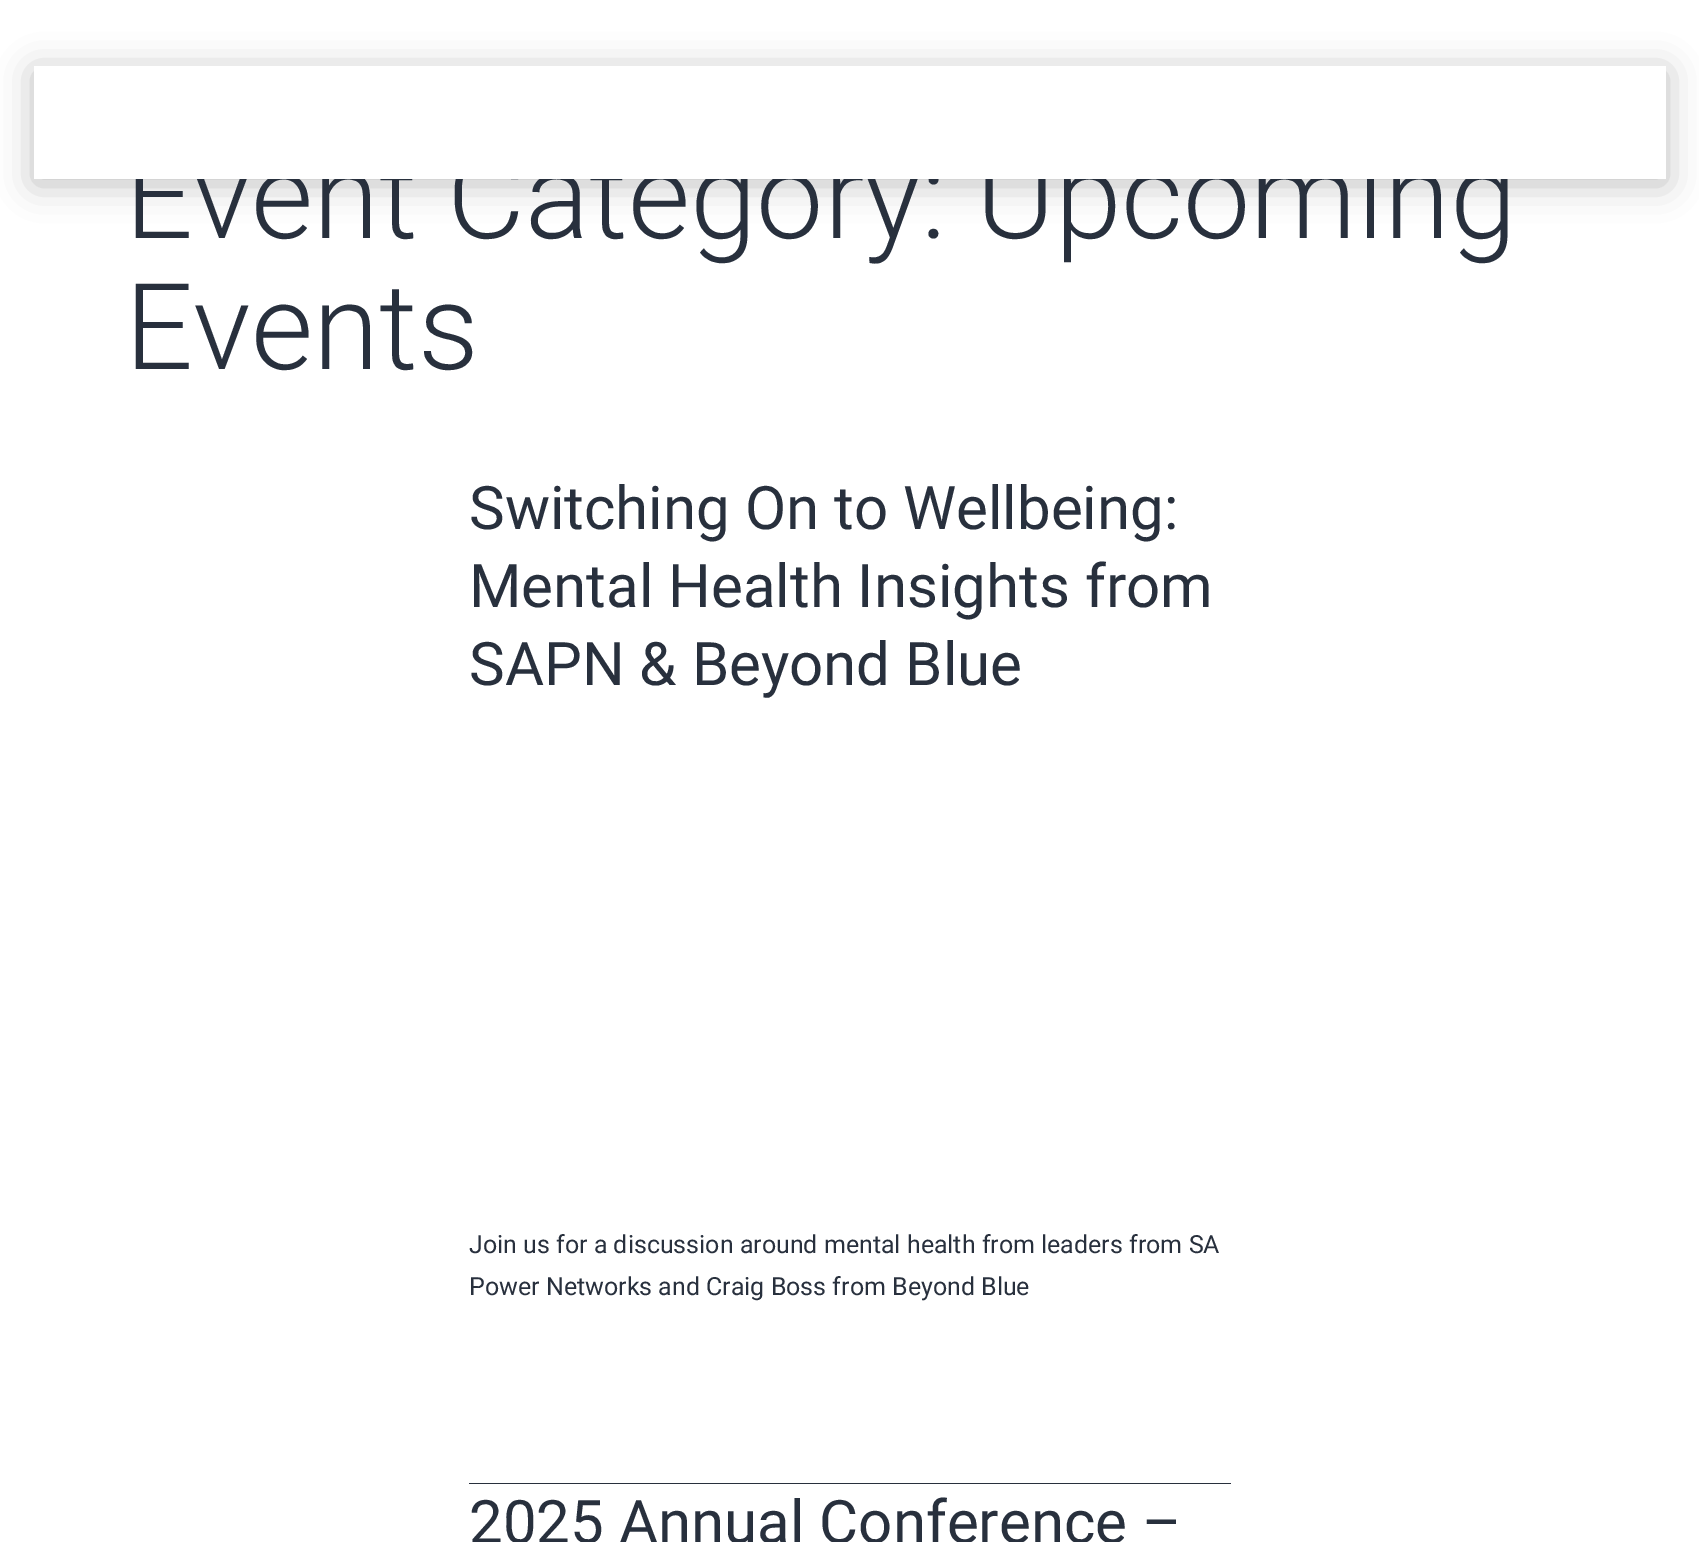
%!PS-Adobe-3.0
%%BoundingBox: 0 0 1699 1542
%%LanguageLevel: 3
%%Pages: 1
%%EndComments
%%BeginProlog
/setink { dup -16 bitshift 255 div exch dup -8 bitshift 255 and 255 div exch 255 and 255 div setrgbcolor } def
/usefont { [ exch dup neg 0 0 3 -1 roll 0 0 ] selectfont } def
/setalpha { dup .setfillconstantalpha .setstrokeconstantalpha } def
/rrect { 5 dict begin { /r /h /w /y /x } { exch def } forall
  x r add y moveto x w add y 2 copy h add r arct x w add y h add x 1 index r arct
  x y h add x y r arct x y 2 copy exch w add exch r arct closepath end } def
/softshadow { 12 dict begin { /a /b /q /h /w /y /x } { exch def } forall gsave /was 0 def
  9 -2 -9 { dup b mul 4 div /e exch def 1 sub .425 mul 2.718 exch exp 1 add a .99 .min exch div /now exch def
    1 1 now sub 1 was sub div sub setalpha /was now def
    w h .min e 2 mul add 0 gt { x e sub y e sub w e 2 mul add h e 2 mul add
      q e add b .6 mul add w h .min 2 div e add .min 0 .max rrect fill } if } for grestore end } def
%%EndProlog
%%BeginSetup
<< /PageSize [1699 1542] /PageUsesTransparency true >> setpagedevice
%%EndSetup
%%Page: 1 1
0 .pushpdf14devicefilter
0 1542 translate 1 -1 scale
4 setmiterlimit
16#FFFFFF setink
0 0 1699 1542 rectfill
16#000000 setink
34 71 1632 113 0 17.5 0.25 softshadow
/Roboto-Light 120 usefont
16#28303D setink
125 238 moveto (Event Category: Upcoming) show
16#FFFFFF setink
34 66 1632 113 rectfill
16#28303D setink
125 369 moveto (Events) show
/Roboto-Regular 60 usefont
[
    [(Switching On to Wellbeing:) 469 529]
    [(Mental Health Insights from) 469 607]
    [(SAPN & Beyond Blue) 469 685]
] { aload pop moveto show } forall
/Roboto-Regular 25 usefont
469 1253 moveto (Join us for a discussion around mental health from leaders from SA) show
469 1295 moveto (Power Networks and Craig Boss from Beyond Blue) show
469 1483 762 1 rectfill
/Roboto-Regular 60 usefont
469 1543 moveto (2025 Annual Conference –) show
.poppdf14devicefilter showpage
%%EOF
